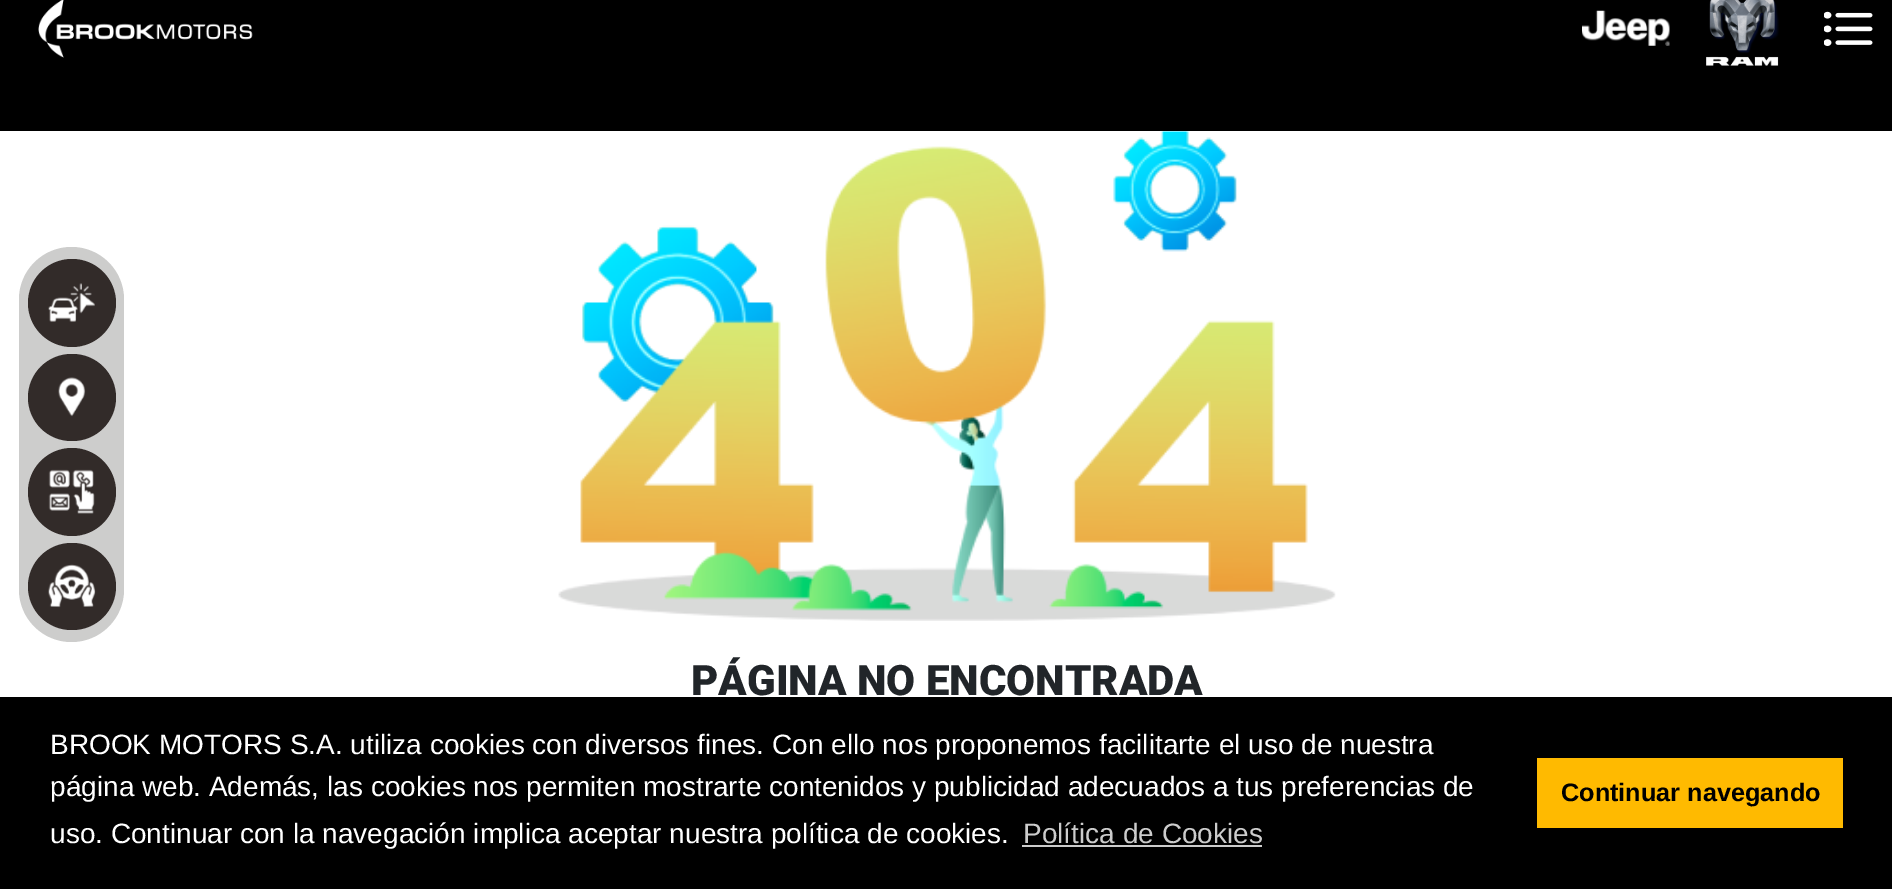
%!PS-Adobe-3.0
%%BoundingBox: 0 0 1892 889
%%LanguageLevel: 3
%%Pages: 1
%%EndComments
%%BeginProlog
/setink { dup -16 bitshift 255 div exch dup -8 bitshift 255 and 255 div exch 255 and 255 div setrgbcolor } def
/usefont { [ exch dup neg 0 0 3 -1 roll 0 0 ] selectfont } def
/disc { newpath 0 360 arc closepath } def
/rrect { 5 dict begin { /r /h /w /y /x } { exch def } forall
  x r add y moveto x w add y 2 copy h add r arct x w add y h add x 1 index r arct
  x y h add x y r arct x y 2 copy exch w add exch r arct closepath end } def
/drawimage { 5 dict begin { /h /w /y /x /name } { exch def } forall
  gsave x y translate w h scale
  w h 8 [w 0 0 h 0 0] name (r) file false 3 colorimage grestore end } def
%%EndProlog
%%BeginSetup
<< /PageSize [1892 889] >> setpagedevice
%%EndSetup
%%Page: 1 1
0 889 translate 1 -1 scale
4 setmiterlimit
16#FFFFFF setink
0 0 1892 889 rectfill
16#000000 setink
0 0 1892 131 rectfill
(img1.raw) 38 0 215 58 drawimage
(img2.raw) 1582 10 88 36 drawimage
(img3.raw) 1706 0 73 66 drawimage
(img4.raw) 1824 11 49 35 drawimage
16#CDCDCC setink
19 247 105 395 52.5 rrect fill
16#322B29 setink
72 303 44 disc fill
(img5.raw) 48 283 47 39 drawimage
28 354 88 87 43.5 rrect fill
(img6.raw) 58 377 28 40 drawimage
72 492 44 disc fill
(img7.raw) 48 469 47 45 drawimage
28 543 88 87 43.5 rrect fill
(img8.raw) 48 564 48 44 drawimage
(img9.raw) 558 131 778 490 drawimage
/Roboto-Black 42 usefont
16#212529 setink
691 695 moveto (PÁGINA NO ENCONTRADA) show
16#000000 setink
0 697 1892 192 rectfill
/LiberationSans-Regular 28 usefont
16#FFFFFF setink
[
    [(BROOK MOTORS S.A. utiliza cookies con diversos fines. Con ello nos proponemos facilitarte el uso de nuestra) 50 754]
    [(página web. Además, las cookies nos permiten mostrarte contenidos y publicidad adecuados a tus preferencias de) 50 796]
    [(uso. Continuar con la navegación implica aceptar nuestra política de cookies.) 50 843]
] { aload pop moveto show } forall
16#CCCCCC setink
1023 843 moveto (Política de Cookies) show
1022 845 240 2 rectfill
16#FFBA00 setink
1537 758 306 70 rectfill
/LiberationSans-Bold 25.25 usefont
16#000000 setink
1561 801 moveto (Continuar navegando) show
showpage
%%EOF
